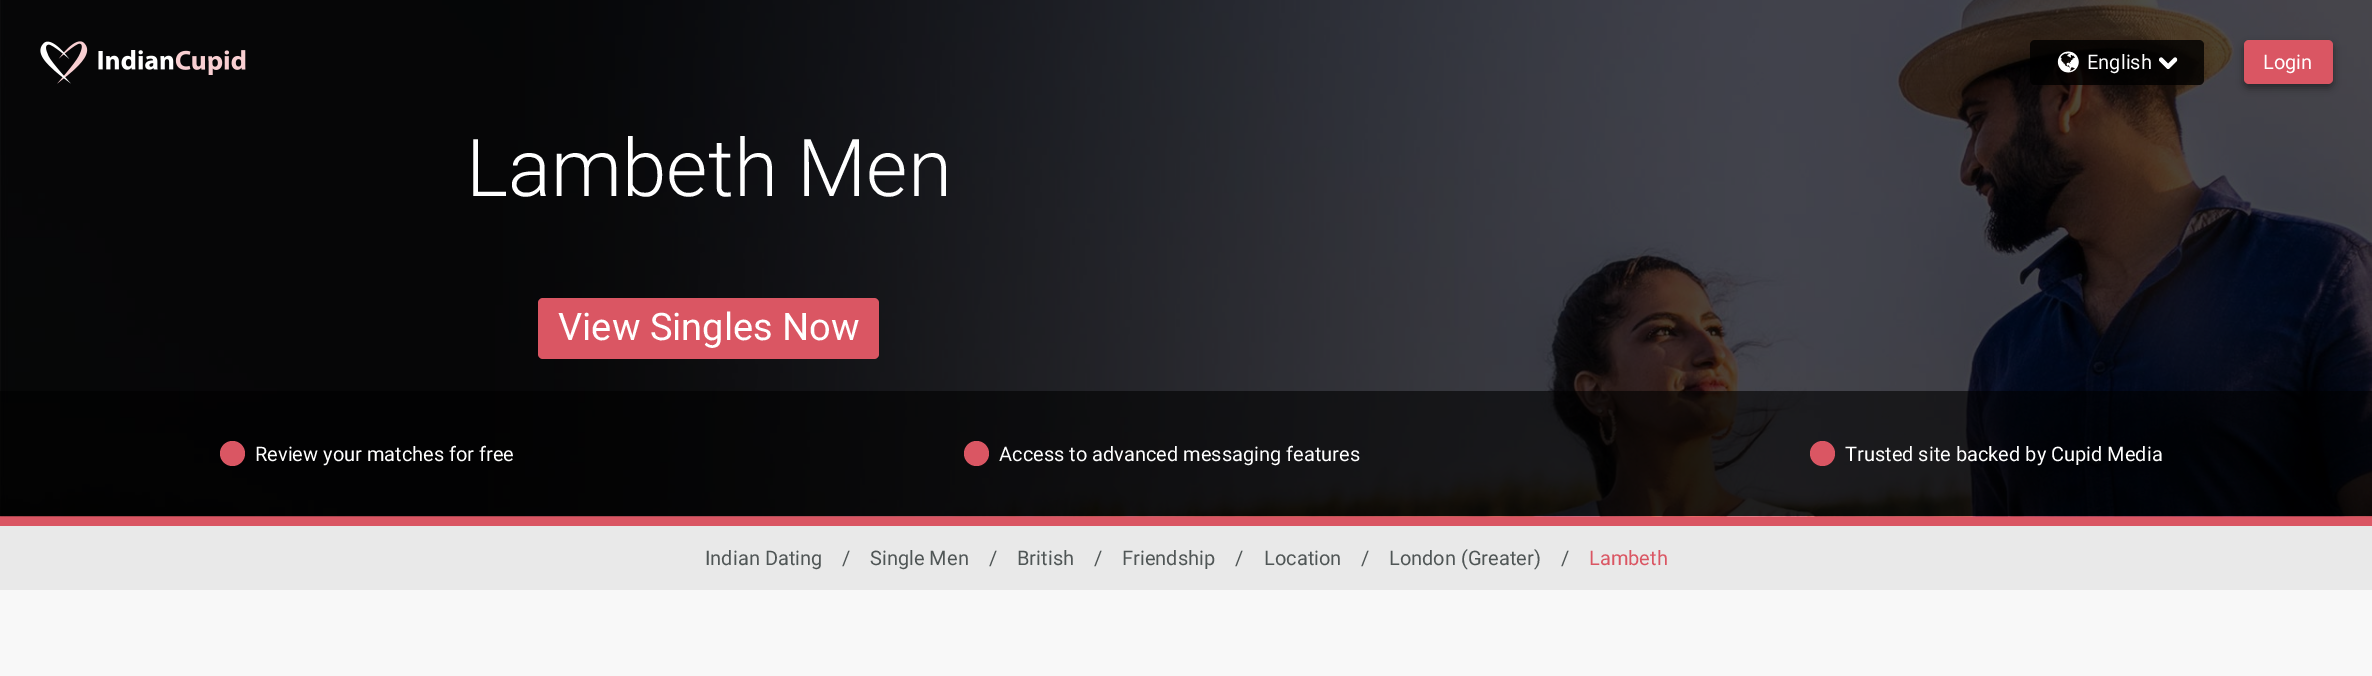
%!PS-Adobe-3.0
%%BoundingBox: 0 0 2372 676
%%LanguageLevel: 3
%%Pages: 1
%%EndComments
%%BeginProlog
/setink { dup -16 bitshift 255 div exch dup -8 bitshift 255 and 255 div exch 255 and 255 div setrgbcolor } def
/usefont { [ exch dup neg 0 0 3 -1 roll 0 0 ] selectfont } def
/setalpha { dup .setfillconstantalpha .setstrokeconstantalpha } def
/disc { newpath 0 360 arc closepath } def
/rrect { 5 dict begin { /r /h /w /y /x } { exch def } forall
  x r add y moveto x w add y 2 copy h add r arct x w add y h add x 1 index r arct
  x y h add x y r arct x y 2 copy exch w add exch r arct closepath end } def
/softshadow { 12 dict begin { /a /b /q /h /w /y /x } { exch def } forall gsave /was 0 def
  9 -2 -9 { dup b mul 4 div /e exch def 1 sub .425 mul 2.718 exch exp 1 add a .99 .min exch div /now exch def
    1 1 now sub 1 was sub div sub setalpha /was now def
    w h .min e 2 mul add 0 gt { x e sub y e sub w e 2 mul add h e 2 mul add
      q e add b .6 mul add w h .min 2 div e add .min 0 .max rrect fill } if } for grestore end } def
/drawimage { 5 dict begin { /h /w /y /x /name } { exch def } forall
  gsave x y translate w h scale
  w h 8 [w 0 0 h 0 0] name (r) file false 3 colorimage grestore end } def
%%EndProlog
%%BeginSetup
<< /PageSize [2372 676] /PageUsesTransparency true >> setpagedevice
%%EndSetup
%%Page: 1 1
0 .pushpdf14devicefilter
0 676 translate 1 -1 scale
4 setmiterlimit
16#F8F8F8 setink
0 0 2372 676 rectfill
16#DA5663 setink
0 516 2372 10 rectfill
(img5.raw) 0 0 2372 517 drawimage
(img1.raw) 40 41 48 43 drawimage
(img2.raw) 98 50 148 25 drawimage
0.8 setalpha
16#000000 setink
2030 40 174 45 5 rrect fill
1 setalpha
(img3.raw) 2057 51 22 22 drawimage
/Roboto-Regular 20 usefont
16#FFFFFF setink
2087 69 moveto (English) show
(img4.raw) 2159 57 19 12 drawimage
16#000000 setink
2244 44 89 44 5 4 0.4 softshadow
16#DA5663 setink
2244 40 89 44 5 rrect fill
16#FFFFFF setink
2263 69 moveto (Login) show
/Roboto-Light 80 usefont
466 196 moveto (Lambeth Men) show
16#DA5663 setink
538 298 341 61 5 rrect fill
/Roboto-Regular 38 usefont
16#FFFFFF setink
558 340 moveto (View Singles Now) show
0.6 setalpha
16#000000 setink
0 391 2372 125 rectfill
1 setalpha
16#DA5663 setink
232.5 453.5 12.5 disc fill
/Roboto-Regular 20 usefont
16#FFFFFF setink
255 461 moveto (Review your matches for free) show
16#DA5663 setink
976.5 453.5 12.5 disc fill
16#FFFFFF setink
999 461 moveto (Access to advanced messaging features) show
16#DA5663 setink
1822.5 453.5 12.5 disc fill
16#FFFFFF setink
1845 461 moveto (Trusted site backed by Cupid Media) show
16#E9E9E9 setink
0 526 2372 64 rectfill
16#505656 setink
[
    [(Indian Dating) 705 565]
    [(/) 842 565]
    [(Single Men) 870 565]
    [(/) 989 565]
    [(British) 1017 565]
    [(/) 1094 565]
    [(Friendship) 1122 565]
    [(/) 1235 565]
    [(Location) 1264 565]
    [(/) 1361 565]
    [(London \(Greater\)) 1389 565]
    [(/) 1561 565]
] { aload pop moveto show } forall
16#DA5663 setink
1589 565 moveto (Lambeth) show
.poppdf14devicefilter showpage
%%EOF
